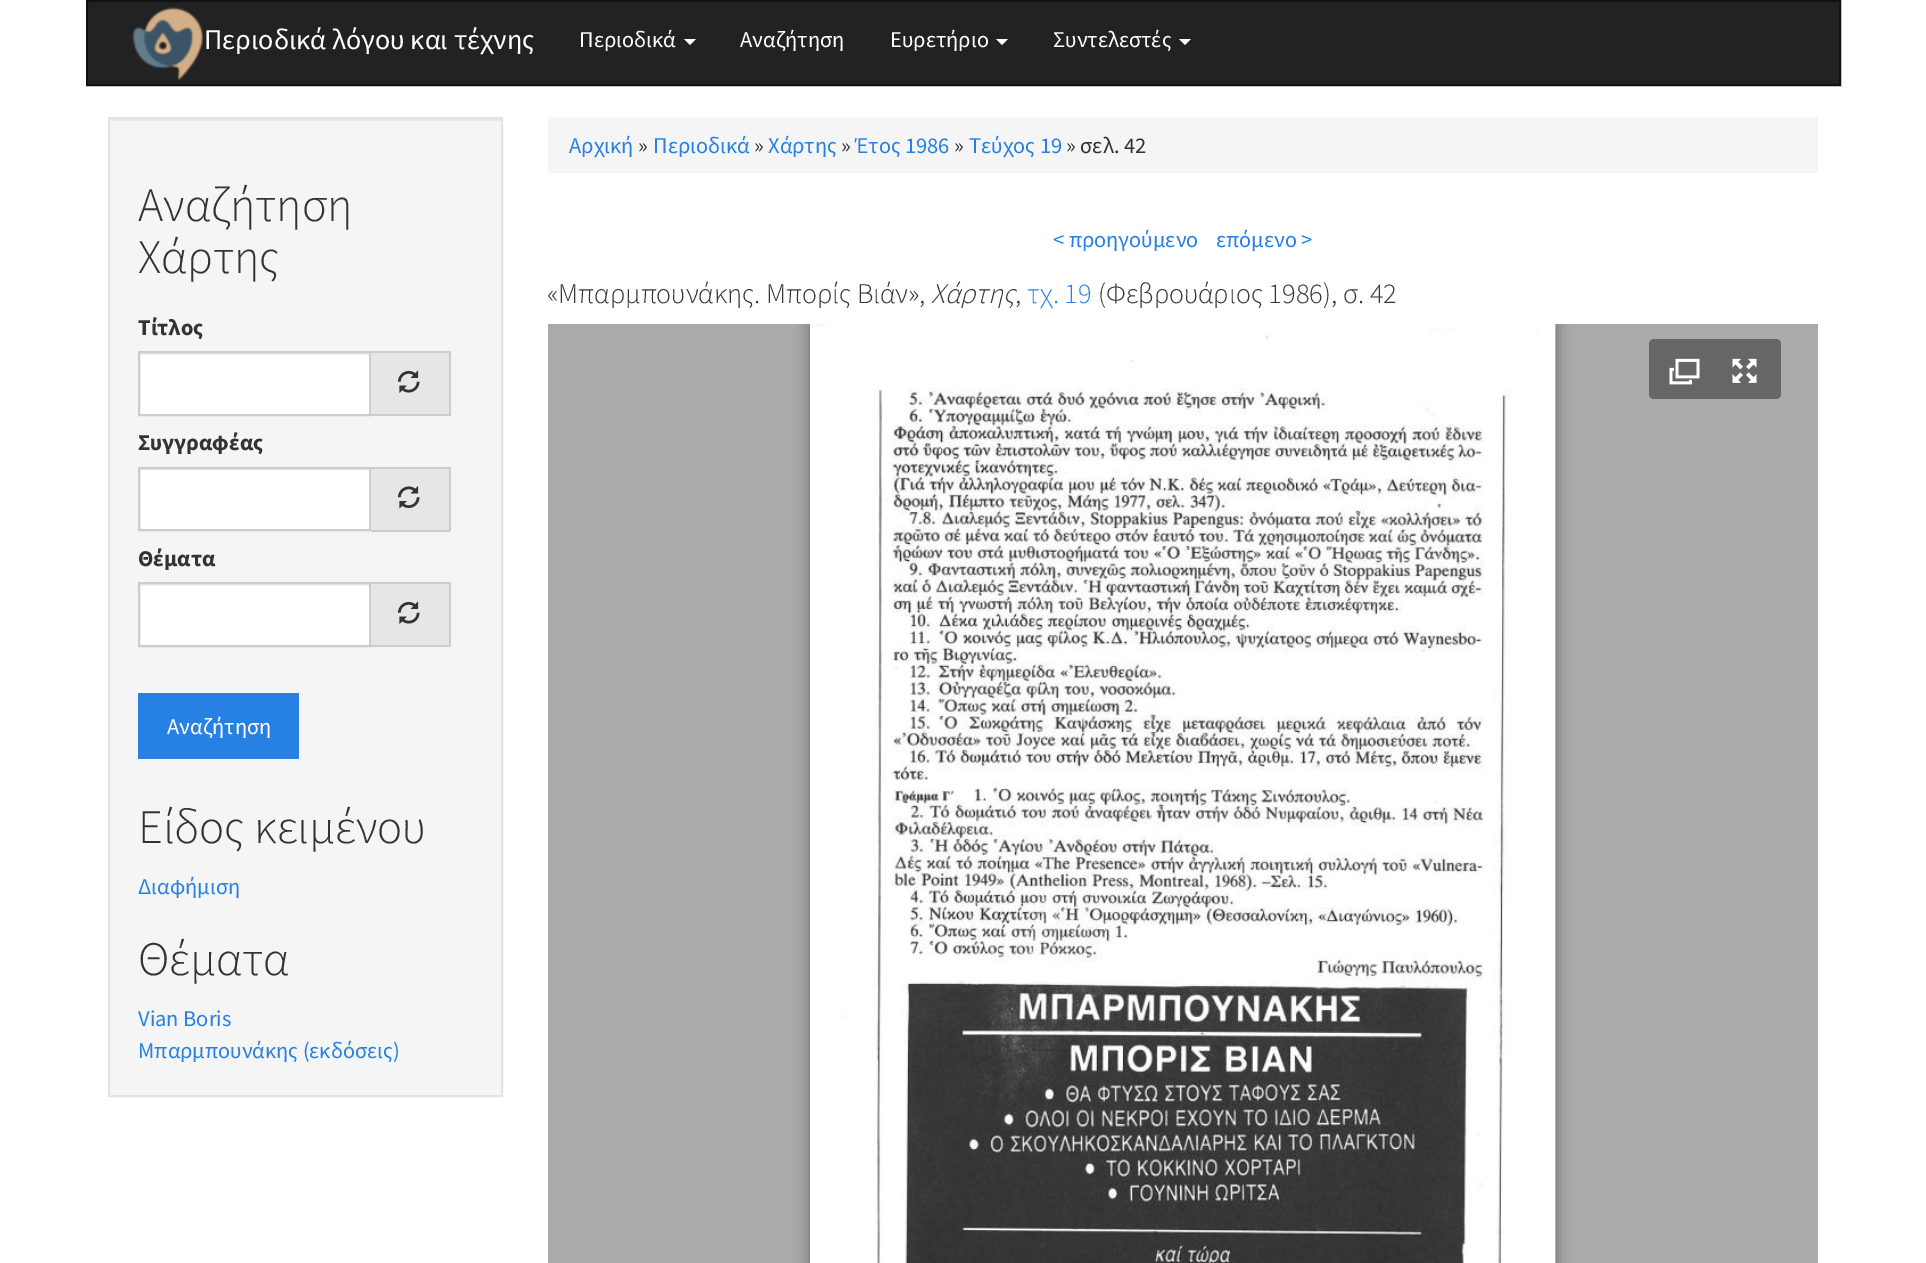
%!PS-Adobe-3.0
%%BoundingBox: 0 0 1926 1263
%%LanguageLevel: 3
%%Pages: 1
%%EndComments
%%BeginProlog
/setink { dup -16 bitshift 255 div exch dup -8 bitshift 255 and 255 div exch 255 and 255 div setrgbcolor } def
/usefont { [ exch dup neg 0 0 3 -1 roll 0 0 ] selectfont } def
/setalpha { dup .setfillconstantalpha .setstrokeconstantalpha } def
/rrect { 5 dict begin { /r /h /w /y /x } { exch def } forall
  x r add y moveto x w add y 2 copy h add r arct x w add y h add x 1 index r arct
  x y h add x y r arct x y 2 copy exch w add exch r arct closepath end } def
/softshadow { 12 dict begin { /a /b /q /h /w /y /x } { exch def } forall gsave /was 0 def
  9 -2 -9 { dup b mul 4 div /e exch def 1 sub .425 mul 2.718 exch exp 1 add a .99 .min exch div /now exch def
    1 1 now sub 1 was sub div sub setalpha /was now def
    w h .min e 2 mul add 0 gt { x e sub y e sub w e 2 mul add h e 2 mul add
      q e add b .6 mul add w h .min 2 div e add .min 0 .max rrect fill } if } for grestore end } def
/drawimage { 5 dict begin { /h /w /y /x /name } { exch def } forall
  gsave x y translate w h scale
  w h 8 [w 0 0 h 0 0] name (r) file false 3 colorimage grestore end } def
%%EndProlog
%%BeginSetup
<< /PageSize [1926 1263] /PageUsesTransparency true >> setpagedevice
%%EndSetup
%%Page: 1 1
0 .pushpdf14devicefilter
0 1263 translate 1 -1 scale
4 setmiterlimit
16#FFFFFF setink
0 0 1926 1263 rectfill
16#222222 setink
87 1 moveto 1840 1 lineto 1840 85 lineto 87 85 lineto closepath gsave fill grestore
16#121212 setink
2 setlinewidth
stroke
(img1.raw) 132 7 72 73 drawimage
/SourceSansPro-Regular 28.5 usefont
16#FFFFFF setink
204 49 moveto (Περιοδικά λόγου και τέχνης) show
/SourceSansPro-Regular 22.5 usefont
579 47 moveto (Περιοδικά) show
684 39 moveto 696 39 lineto 690 45 lineto closepath fill
740 47 moveto (Αναζήτηση) show
890 47 moveto (Ευρετήριο) show
996 39 moveto 1008 39 lineto 1002 45 lineto closepath fill
1053 47 moveto (Συντελεστές) show
1179 39 moveto 1191 39 lineto 1185 45 lineto closepath fill
16#F5F5F5 setink
110 121 391 974 rectfill
16#E9E9E9 setink
110 119 391 2 rectfill
16#E3E3E3 setink
109 118 393 978 rectstroke
/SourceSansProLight-Light 48 usefont
16#333333 setink
138 221 moveto (Αναζήτηση) show
138 273 moveto (Χάρτης) show
/SourceSansPro-Bold 22.5 usefont
138 335 moveto (Τίτλος) show
16#FFFFFF setink
140 355 229 59 rectfill
16#ECECEC setink
140 353 229 2 rectfill
16#CCCCCC setink
139 352 231 63 rectstroke
[
    [371 353 78 61 16#E6E6E6]
    [371 351 79 2 16#CCCCCC]
    [449 351 2 65 16#CCCCCC]
    [371 414 79 2 16#CCCCCC]
] { aload pop setink rectfill } forall
(img2.raw) 397 370 23 23 drawimage
16#333333 setink
138 450 moveto (Συγγραφέας) show
16#FFFFFF setink
140 470 229 59 rectfill
16#ECECEC setink
140 469 229 1 rectfill
16#CCCCCC setink
139 468 231 62 rectstroke
[
    [371 469 78 61 16#E6E6E6]
    [371 467 79 2 16#CCCCCC]
    [449 467 2 64 16#CCCCCC]
    [371 530 79 2 16#CCCCCC]
] { aload pop setink rectfill } forall
(img3.raw) 398 486 22 23 drawimage
16#333333 setink
138 566 moveto (Θέματα) show
16#FFFFFF setink
140 586 229 59 rectfill
16#ECECEC setink
140 584 229 2 rectfill
16#CCCCCC setink
139 583 231 63 rectstroke
[
    [371 584 78 61 16#E6E6E6]
    [371 582 79 2 16#CCCCCC]
    [449 582 2 65 16#CCCCCC]
    [371 645 79 2 16#CCCCCC]
] { aload pop setink rectfill } forall
(img2.raw) 397 601 23 23 drawimage
16#2780E3 setink
138 693 161 66 rectfill
/SourceSansPro-Regular 22.5 usefont
16#FFFFFF setink
167 734 moveto (Αναζήτηση) show
/SourceSansProLight-Light 48 usefont
16#333333 setink
138 843 moveto (Είδος κειμένου) show
/SourceSansPro-Regular 22.5 usefont
16#2780E3 setink
138 894 moveto (Διαφήμιση) show
/SourceSansProLight-Light 48 usefont
16#333333 setink
138 975 moveto (Θέματα) show
/SourceSansPro-Regular 22.5 usefont
16#2780E3 setink
138 1026 moveto (Vian Boris) show
138 1058 moveto (Μπαρμπουνάκης \(εκδόσεις\)) show
16#F5F5F5 setink
548 117 1270 56 rectfill
16#2780E3 setink
569 153 moveto (Αρχική) show
16#333333 setink
638 153 moveto (») show
16#2780E3 setink
653 153 moveto (Περιοδικά) show
16#333333 setink
754 153 moveto (») show
16#2780E3 setink
768 153 moveto (Χάρτης) show
16#333333 setink
841 153 moveto (») show
16#2780E3 setink
855 153 moveto (Έτος 1986) show
16#333333 setink
954 153 moveto (») show
16#2780E3 setink
969 153 moveto (Τεύχος 19) show
16#333333 setink
1066 153 moveto (» σελ. 42) show
16#2780E3 setink
1053 247 moveto (< προηγούμενο) show
1216 247 moveto (επόμενο >) show
/SourceSansProLight-Light 28.5 usefont
16#333333 setink
547 303 moveto («Μπαρμπουνάκης. Μπορίς Βιάν»,) show
/SourceSansProLight-LightItalic 28.5 usefont
931 303 moveto (Χάρτης) show
/SourceSansProLight-Light 28.5 usefont
1015 303 moveto (,) show
16#2780E3 setink
1027 303 moveto (τχ. 19) show
16#333333 setink
1098 303 moveto (\(Φεβρουάριος 1986\), σ. 42) show
16#AAAAAA setink
548 324 1270 939 rectfill
gsave
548 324 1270 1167 rectclip
16#000000 setink
810 324 746 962 0 7.5 0.4 softshadow
grestore
(img4.raw) 810 324 746 939 drawimage
16#666666 setink
1649 339 132 60 5 rrect fill
(img5.raw) 1669 358 31 27 drawimage
(img6.raw) 1732 358 25 25 drawimage
.poppdf14devicefilter showpage
%%EOF
